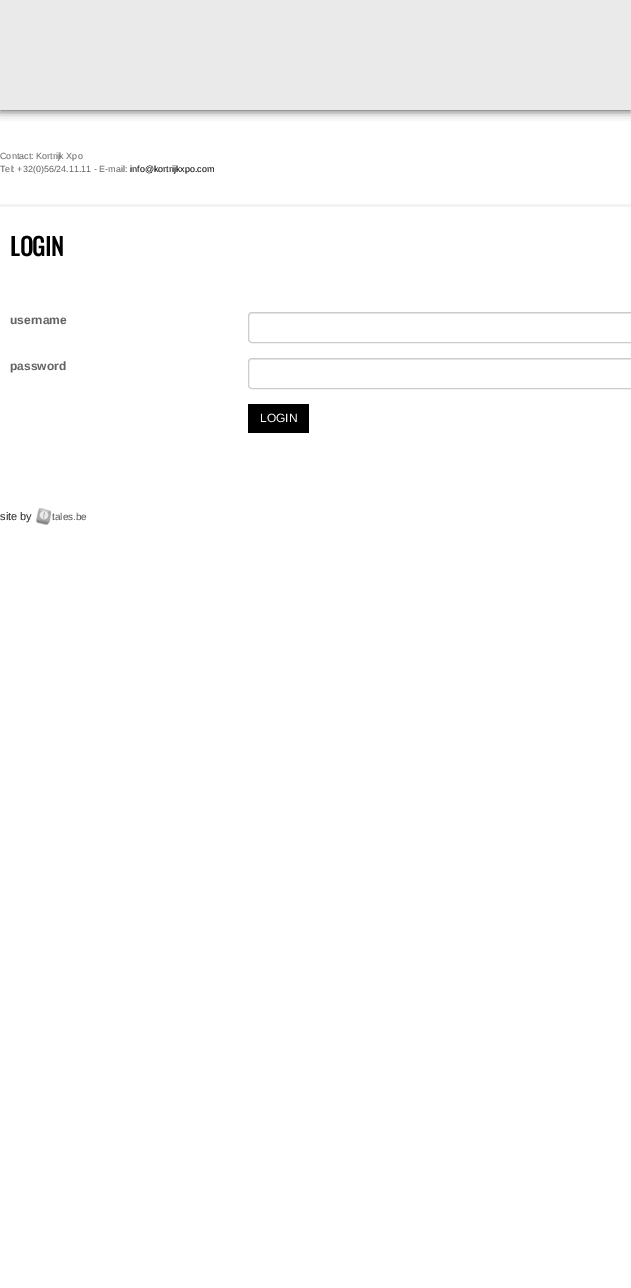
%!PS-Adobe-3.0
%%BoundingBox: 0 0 631 1288
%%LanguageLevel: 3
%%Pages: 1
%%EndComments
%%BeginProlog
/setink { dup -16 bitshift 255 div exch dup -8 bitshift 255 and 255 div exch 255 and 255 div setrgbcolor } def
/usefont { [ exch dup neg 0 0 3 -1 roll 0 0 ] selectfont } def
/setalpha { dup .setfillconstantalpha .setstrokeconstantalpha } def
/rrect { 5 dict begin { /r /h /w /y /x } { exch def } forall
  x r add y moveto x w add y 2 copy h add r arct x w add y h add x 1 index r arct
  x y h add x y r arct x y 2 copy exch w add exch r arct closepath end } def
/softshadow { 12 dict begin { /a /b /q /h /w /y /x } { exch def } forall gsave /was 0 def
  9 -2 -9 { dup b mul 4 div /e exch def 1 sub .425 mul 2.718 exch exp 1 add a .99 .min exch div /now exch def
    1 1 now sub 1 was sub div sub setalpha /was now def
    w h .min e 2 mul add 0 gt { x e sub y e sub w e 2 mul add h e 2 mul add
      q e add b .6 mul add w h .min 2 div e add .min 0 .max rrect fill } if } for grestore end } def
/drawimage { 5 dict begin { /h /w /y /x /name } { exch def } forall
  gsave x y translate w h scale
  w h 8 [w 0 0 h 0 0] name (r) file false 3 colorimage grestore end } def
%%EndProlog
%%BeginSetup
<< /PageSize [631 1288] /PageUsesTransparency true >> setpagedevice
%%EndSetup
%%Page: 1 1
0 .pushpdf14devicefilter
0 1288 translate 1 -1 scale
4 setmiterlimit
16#FFFFFF setink
0 0 631 1288 rectfill
16#000000 setink
0 0 631 110 0 5 0.8 softshadow
16#EAEAEA setink
0 0 631 110 rectfill
16#F3F3F3 setink
0 204 631 3 rectfill
/LiberationSans-Regular 9 usefont
16#636363 setink
0 159 moveto (Contact: Kortrijk Xpo) show
0 172 moveto (Tel: +32\(0\)56/24.11.11 - E-mail:) show
16#000000 setink
130 172 moveto (info@kortrijkxpo.com) show
/Oswald-Bold 24 usefont
10 256 moveto (LOGIN) show
/LiberationSans-Bold 12 usefont
16#636363 setink
10 324 moveto (username) show
16#ECECEC setink
252 314 moveto 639 314 lineto 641 314 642 315 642 317 curveto 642 315 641 313 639 313 curveto 252 313 lineto 250 314 lineto 249 317 lineto 249 315 250 314 252 314 curveto closepath fill
16#CCCCCC setink
248.5 312.5 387 30 3.5 rrect stroke
16#636363 setink
10 370 moveto (password) show
16#ECECEC setink
252 360 moveto 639 360 lineto 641 360 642 361 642 363 curveto 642 361 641 359 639 359 curveto 252 359 lineto 250 360 lineto 249 363 lineto 249 361 250 360 252 360 curveto closepath fill
16#CCCCCC setink
248.5 358.5 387 30 3.5 rrect stroke
16#000000 setink
248 404 61 29 rectfill
/LiberationSans-Regular 12 usefont
16#FFFFFF setink
260 422 moveto (LOGIN) show
/LiberationSans-Regular 11 usefont
16#222222 setink
0 520 moveto (site by) show
(img1.raw) 36 508 16 17 drawimage
/LiberationSans-Regular 10 usefont
16#4E4E4E setink
52 520 moveto (tales.be) show
.poppdf14devicefilter showpage
%%EOF
